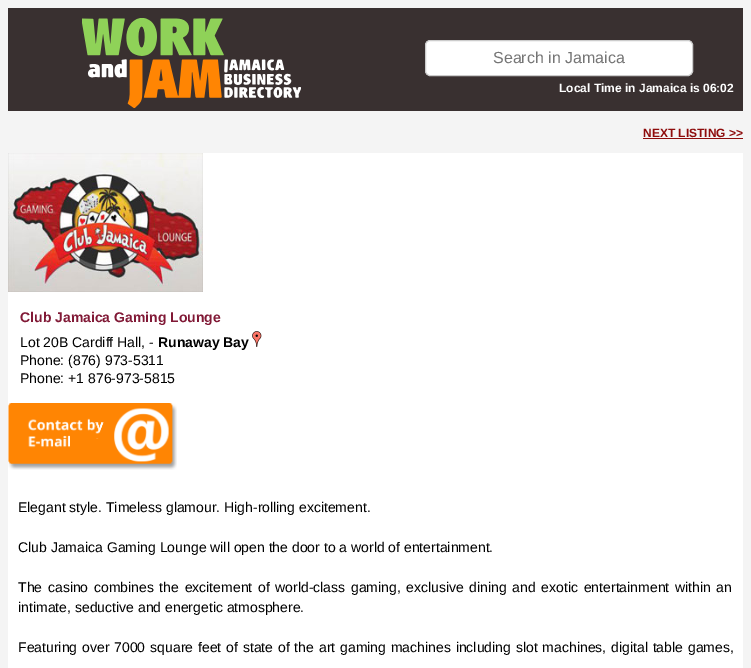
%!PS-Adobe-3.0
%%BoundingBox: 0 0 751 668
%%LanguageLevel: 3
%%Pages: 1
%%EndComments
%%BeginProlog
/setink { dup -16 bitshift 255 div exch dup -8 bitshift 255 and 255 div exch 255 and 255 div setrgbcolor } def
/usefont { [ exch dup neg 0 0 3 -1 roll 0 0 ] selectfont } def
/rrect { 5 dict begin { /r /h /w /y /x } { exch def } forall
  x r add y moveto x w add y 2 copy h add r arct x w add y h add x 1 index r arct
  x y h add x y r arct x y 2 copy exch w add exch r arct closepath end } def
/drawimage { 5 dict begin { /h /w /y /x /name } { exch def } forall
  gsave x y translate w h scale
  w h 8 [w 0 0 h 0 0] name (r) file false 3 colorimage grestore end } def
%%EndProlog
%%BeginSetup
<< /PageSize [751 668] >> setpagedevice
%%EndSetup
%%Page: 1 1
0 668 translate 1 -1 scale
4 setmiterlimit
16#F4F4F4 setink
0 0 751 668 rectfill
16#393030 setink
8 8 735 103 rectfill
(img1.raw) 82 18 219 90 drawimage
16#FFFFFF setink
425.5 40.5 267 35 4.5 rrect gsave fill grestore
16#CCCCCC setink
stroke
/LiberationSans-Regular 16 usefont
16#757575 setink
493 63 moveto (Search in Jamaica) show
/LiberationSans-Bold 12 usefont
16#FFFFFF setink
559 92 moveto (Local Time in Jamaica is 06:02) show
16#8E0C0C setink
643 137 moveto (NEXT LISTING >>) show
643 138 100 1 rectfill
16#FFFFFF setink
8 153 735 515 rectfill
(img2.raw) 8 153 195 139 drawimage
/LiberationSans-Bold 14 usefont
16#811936 setink
20 322 moveto (Club Jamaica Gaming Lounge) show
/LiberationSans-Regular 14 usefont
16#000000 setink
20 347 moveto (Lot 20B Cardiff Hall, -) show
/LiberationSans-Bold 14 usefont
158 347 moveto (Runaway Bay) show
(img3.raw) 252 331 10 16 drawimage
/LiberationSans-Regular 14 usefont
20 365 moveto (Phone: \(876\) 973-5311) show
20 383 moveto (Phone: +1 876-973-5815) show
(img4.raw) 8 403 169 67 drawimage
18 512 moveto (Elegant style. Timeless glamour. High-rolling excitement.) show
18 552 moveto (Club Jamaica Gaming Lounge will open the door to a world of entertainment.) show
18 592 moveto 1.75 0 32 (The casino combines the excitement of world-class gaming, exclusive dining and exotic entertainment within an) widthshow
18 612 moveto (intimate, seductive and energetic atmosphere.) show
18 652 moveto 1 0 32 (Featuring over 7000 square feet of state of the art gaming machines including slot machines, digital table games,) widthshow
showpage
%%EOF
